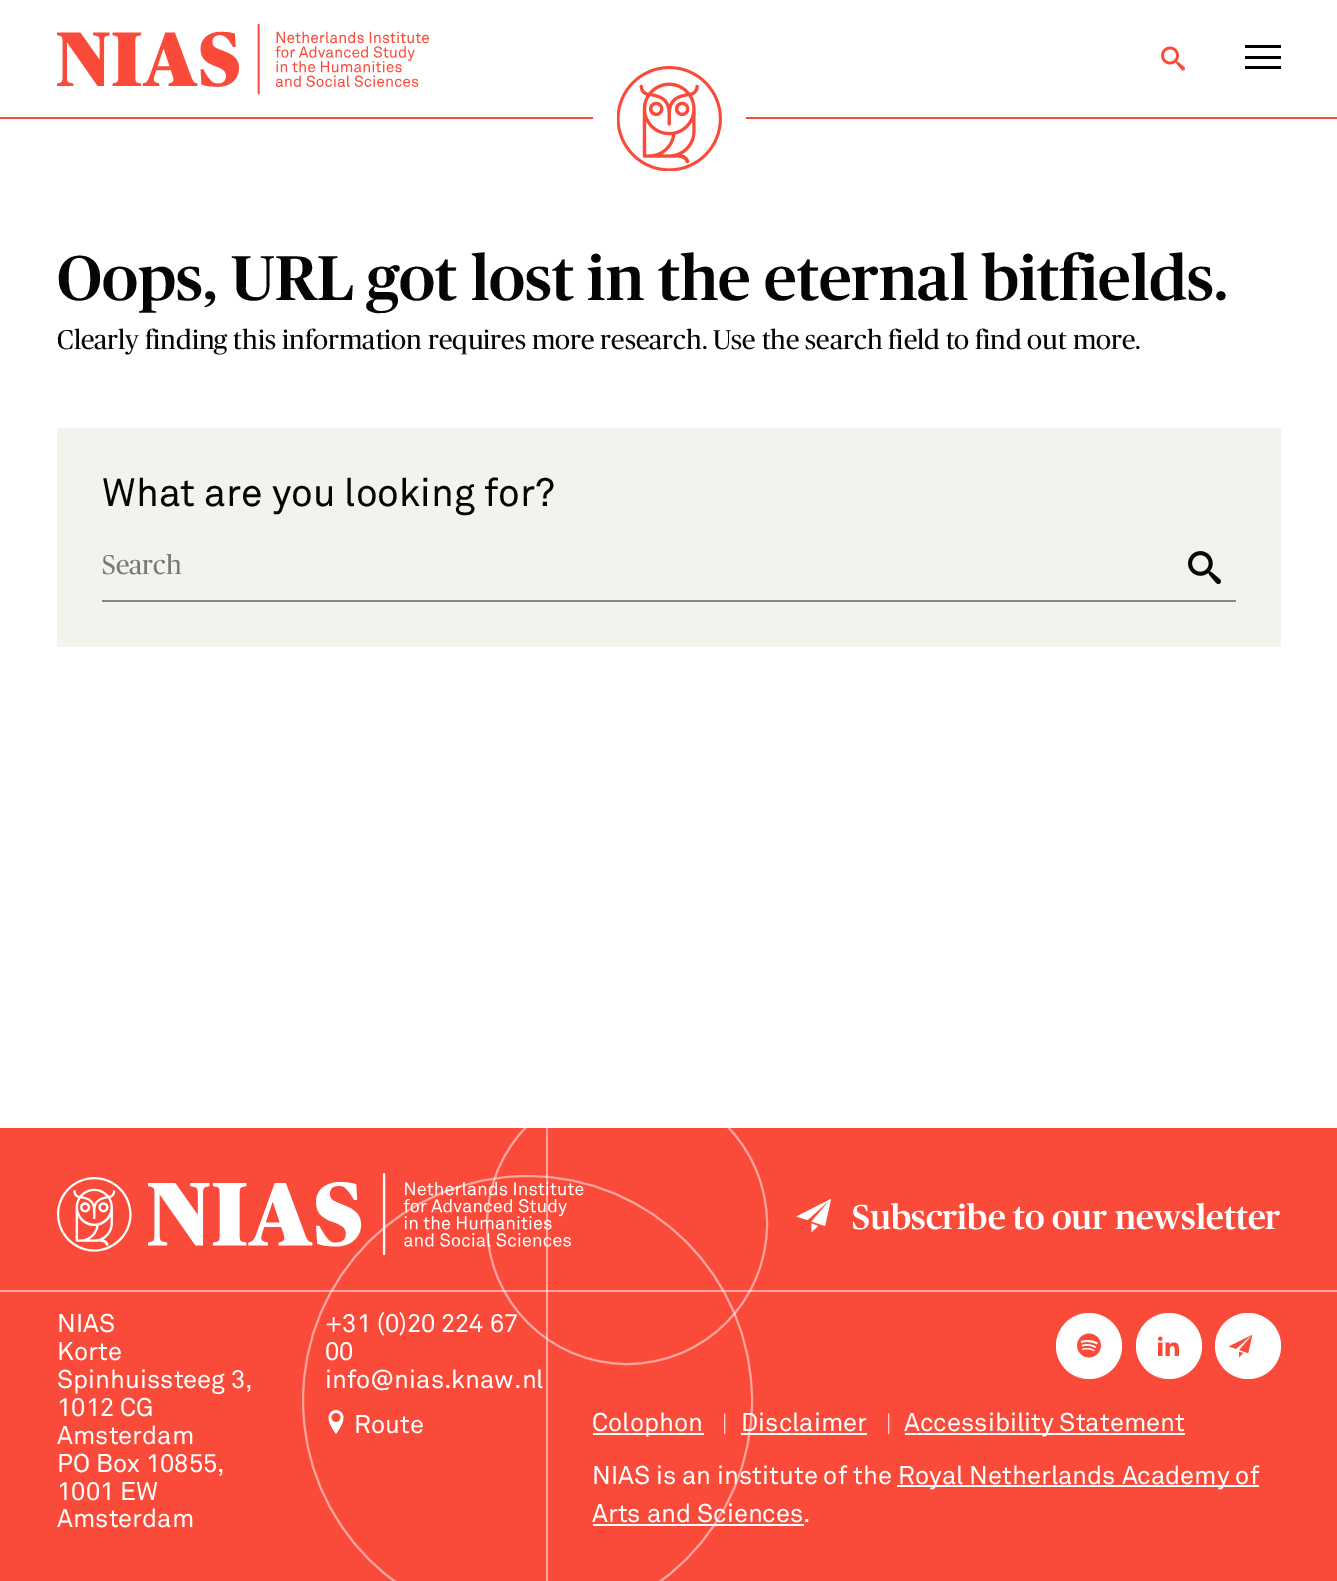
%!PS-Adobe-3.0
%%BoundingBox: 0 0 1337 1581
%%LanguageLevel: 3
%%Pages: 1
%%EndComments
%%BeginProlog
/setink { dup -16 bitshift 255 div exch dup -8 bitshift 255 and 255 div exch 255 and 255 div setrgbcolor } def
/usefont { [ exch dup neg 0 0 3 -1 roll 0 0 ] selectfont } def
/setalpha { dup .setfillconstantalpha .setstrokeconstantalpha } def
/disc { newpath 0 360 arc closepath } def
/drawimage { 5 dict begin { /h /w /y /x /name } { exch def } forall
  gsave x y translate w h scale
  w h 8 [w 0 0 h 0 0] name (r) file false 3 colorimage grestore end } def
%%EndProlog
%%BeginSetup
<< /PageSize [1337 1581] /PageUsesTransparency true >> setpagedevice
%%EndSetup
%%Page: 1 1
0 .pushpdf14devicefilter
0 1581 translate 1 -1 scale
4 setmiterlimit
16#FFFFFF setink
0 0 1337 1581 rectfill
(img1.raw) 57 24 372 71 drawimage
(img2.raw) 1161 46 24 25 drawimage
[
    [1245 45 36 3 16#000000]
    [1245 56 36 3 16#000000]
    [1245 66 36 3 16#000000]
    [0 117 593 2 16#FA4A39]
] { aload pop setink rectfill } forall
(img3.raw) 617 66 105 105 drawimage
746 117 591 2 rectfill
/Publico-Medium 63.2 usefont
16#050505 setink
57 300 moveto (Oops, URL got lost in the eternal bitfields.) show
/Publico-Regular 27.05 usefont
57 349 moveto (Clearly finding this information requires more research. Use the search field to find out more.) show
16#F4F2ED setink
57 428 1224 219 rectfill
/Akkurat-Regular 39 usefont
16#050505 setink
102 506 moveto (What are you looking for?) show
16#888785 setink
102 600 1134 2 rectfill
gsave
102 554 1071 27 rectclip
/Publico-Regular 27.05 usefont
16#787878 setink
102 574 moveto (Search) show
grestore
(img4.raw) 1188 551 33 33 drawimage
16#FA4A39 setink
0 1128 1337 453 rectfill
(img5.raw) 57 1173 527 83 drawimage
/Akkurat-Regular 25.5 usefont
16#FFFFFF setink
325 1332 moveto (+31 \(0\)20 224 67) show
16#FDA59C setink
0 1290 1337 2 rectfill
gsave
0 1128 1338 453 rectclip
0.5 setalpha
16#FFFFFF setink
2 setlinewidth
627 1224 140 disc stroke
grestore
16#FFFFFF setink
325 1360 moveto (00) show
325 1388 moveto (info@nias.knaw.nl) show
(img6.raw) 328 1410 16 24 drawimage
354 1433 moveto (Route) show
0.5 setalpha
2 setlinewidth
527.5 1400.5 224.5 disc stroke
546 1128 2 453 rectfill
1 setalpha
811.5 1221.5 moveto 825 1226 lineto 831 1199 lineto closepath 807.5 1220 moveto 831 1199 lineto 796.5 1216.5 lineto closepath 811.5 1223.5 moveto 811.5 1232 lineto 818 1226 lineto closepath fill
/Publico-Medium 34.5 usefont
852 1229 moveto (Subscribe to our newsletter) show
/Akkurat-Regular 25.5 usefont
[
    [(NIAS) 57 1332]
    [(Korte) 57 1360]
    [(Spinhuissteeg 3,) 57 1388]
    [(1012 CG) 57 1416]
    [(Amsterdam) 57 1444]
    [(PO Box 10855,) 57 1472]
    [(1001 EW) 57 1500]
    [(Amsterdam) 57 1527]
] { aload pop moveto show } forall
1089 1346 33 disc fill
(img7.raw) 1077 1333 24 25 drawimage
1169 1346 33 disc fill
(img8.raw) 1158 1336 21 20 drawimage
1248 1346 33 disc fill
(img9.raw) 1228 1334 25 24 drawimage
593 1433 111 2 rectfill
592 1431 moveto (Colophon) show
/Publico-Regular 24 usefont
722 1431 moveto (|) show
/Akkurat-Regular 25.5 usefont
741 1431 moveto (Disclaimer) show
741 1433 126 2 rectfill
/Publico-Regular 24 usefont
886 1431 moveto (|) show
905 1433 280 2 rectfill
/Akkurat-Regular 25.5 usefont
904 1431 moveto (Accessibility Statement) show
592 1484 moveto (NIAS is an institute of the) show
897 1485 362 2 rectfill
898 1484 moveto (Royal Netherlands Academy of) show
592 1522 moveto (Arts and Sciences.) show
593 1524 211 2 rectfill
.poppdf14devicefilter showpage
%%EOF
